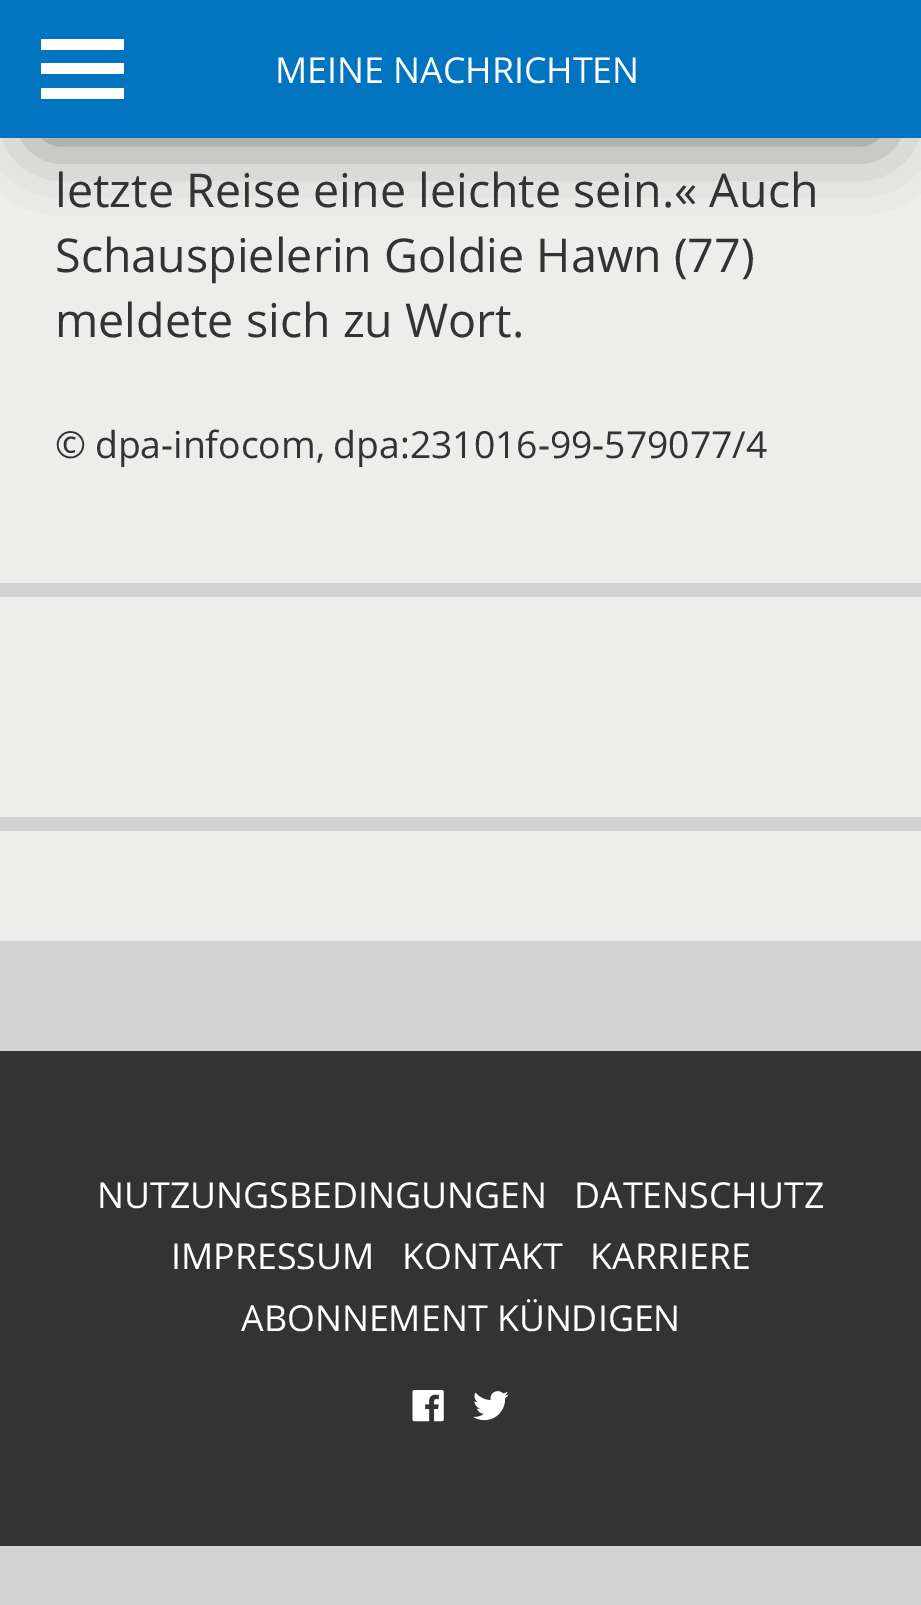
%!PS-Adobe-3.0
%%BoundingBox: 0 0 921 1605
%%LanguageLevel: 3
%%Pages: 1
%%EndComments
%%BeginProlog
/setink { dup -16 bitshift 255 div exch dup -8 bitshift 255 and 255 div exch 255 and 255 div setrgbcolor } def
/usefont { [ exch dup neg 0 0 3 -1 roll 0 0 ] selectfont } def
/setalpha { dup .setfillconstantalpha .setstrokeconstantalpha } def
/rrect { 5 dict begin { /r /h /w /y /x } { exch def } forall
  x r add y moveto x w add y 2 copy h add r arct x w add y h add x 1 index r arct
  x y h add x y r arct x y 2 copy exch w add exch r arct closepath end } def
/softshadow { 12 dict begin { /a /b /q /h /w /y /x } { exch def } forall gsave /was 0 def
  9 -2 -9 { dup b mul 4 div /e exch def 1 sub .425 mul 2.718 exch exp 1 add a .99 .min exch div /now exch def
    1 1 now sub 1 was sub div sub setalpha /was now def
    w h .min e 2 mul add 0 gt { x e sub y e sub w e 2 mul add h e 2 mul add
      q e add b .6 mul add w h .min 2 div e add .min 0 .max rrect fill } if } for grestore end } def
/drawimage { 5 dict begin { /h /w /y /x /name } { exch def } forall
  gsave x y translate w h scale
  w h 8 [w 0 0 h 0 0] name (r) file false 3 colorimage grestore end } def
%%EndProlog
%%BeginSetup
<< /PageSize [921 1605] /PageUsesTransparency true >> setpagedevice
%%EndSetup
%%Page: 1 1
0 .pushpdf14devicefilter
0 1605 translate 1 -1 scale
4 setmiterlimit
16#D3D3D4 setink
0 0 921 1605 rectfill
16#EDEDEC setink
0 138 921 803 rectfill
16#000000 setink
41 83 839 55 0 34.5 0.5 softshadow
[
    [0 0 921 138 16#0074BE]
    [41 63 83 11 16#FFFFFF]
    [41 39 83 11 16#FFFFFF]
    [41 88 83 11 16#FFFFFF]
] { aload pop setink rectfill } forall
/OpenSans-Regular 35.75 usefont
275 83 moveto (MEINE NACHRICHTEN) show
/OpenSans-Regular 46.6 usefont
16#333333 setink
[
    [(letzte Reise eine leichte sein.« Auch) 55 207]
    [(Schauspielerin Goldie Hawn \(77\)) 55 272]
    [(meldete sich zu Wort.) 55 337]
] { aload pop moveto show } forall
/OpenSans-Regular 37.3 usefont
55 458 moveto -1 0 32 (© dpa-infocom, dpa:231016-99-579077/4) widthshow
[
    [0 583 921 14 16#D3D3D4]
    [0 817 921 14 16#D3D3D4]
    [0 1051 921 495 16#333333]
] { aload pop setink rectfill } forall
/OpenSans-Regular 35.75 usefont
16#FFFFFF setink
[
    [(NUTZUNGSBEDINGUNGEN) 97 1208]
    [(DATENSCHUTZ) 574 1208]
    [(IMPRESSUM) 171 1269]
    [(KONTAKT) 402 1269]
    [(KARRIERE) 590 1269]
    [(ABONNEMENT KÜNDIGEN) 241 1331]
] { aload pop moveto show } forall
(img1.raw) 412 1390 32 32 drawimage
(img2.raw) 473 1391 36 30 drawimage
.poppdf14devicefilter showpage
%%EOF
